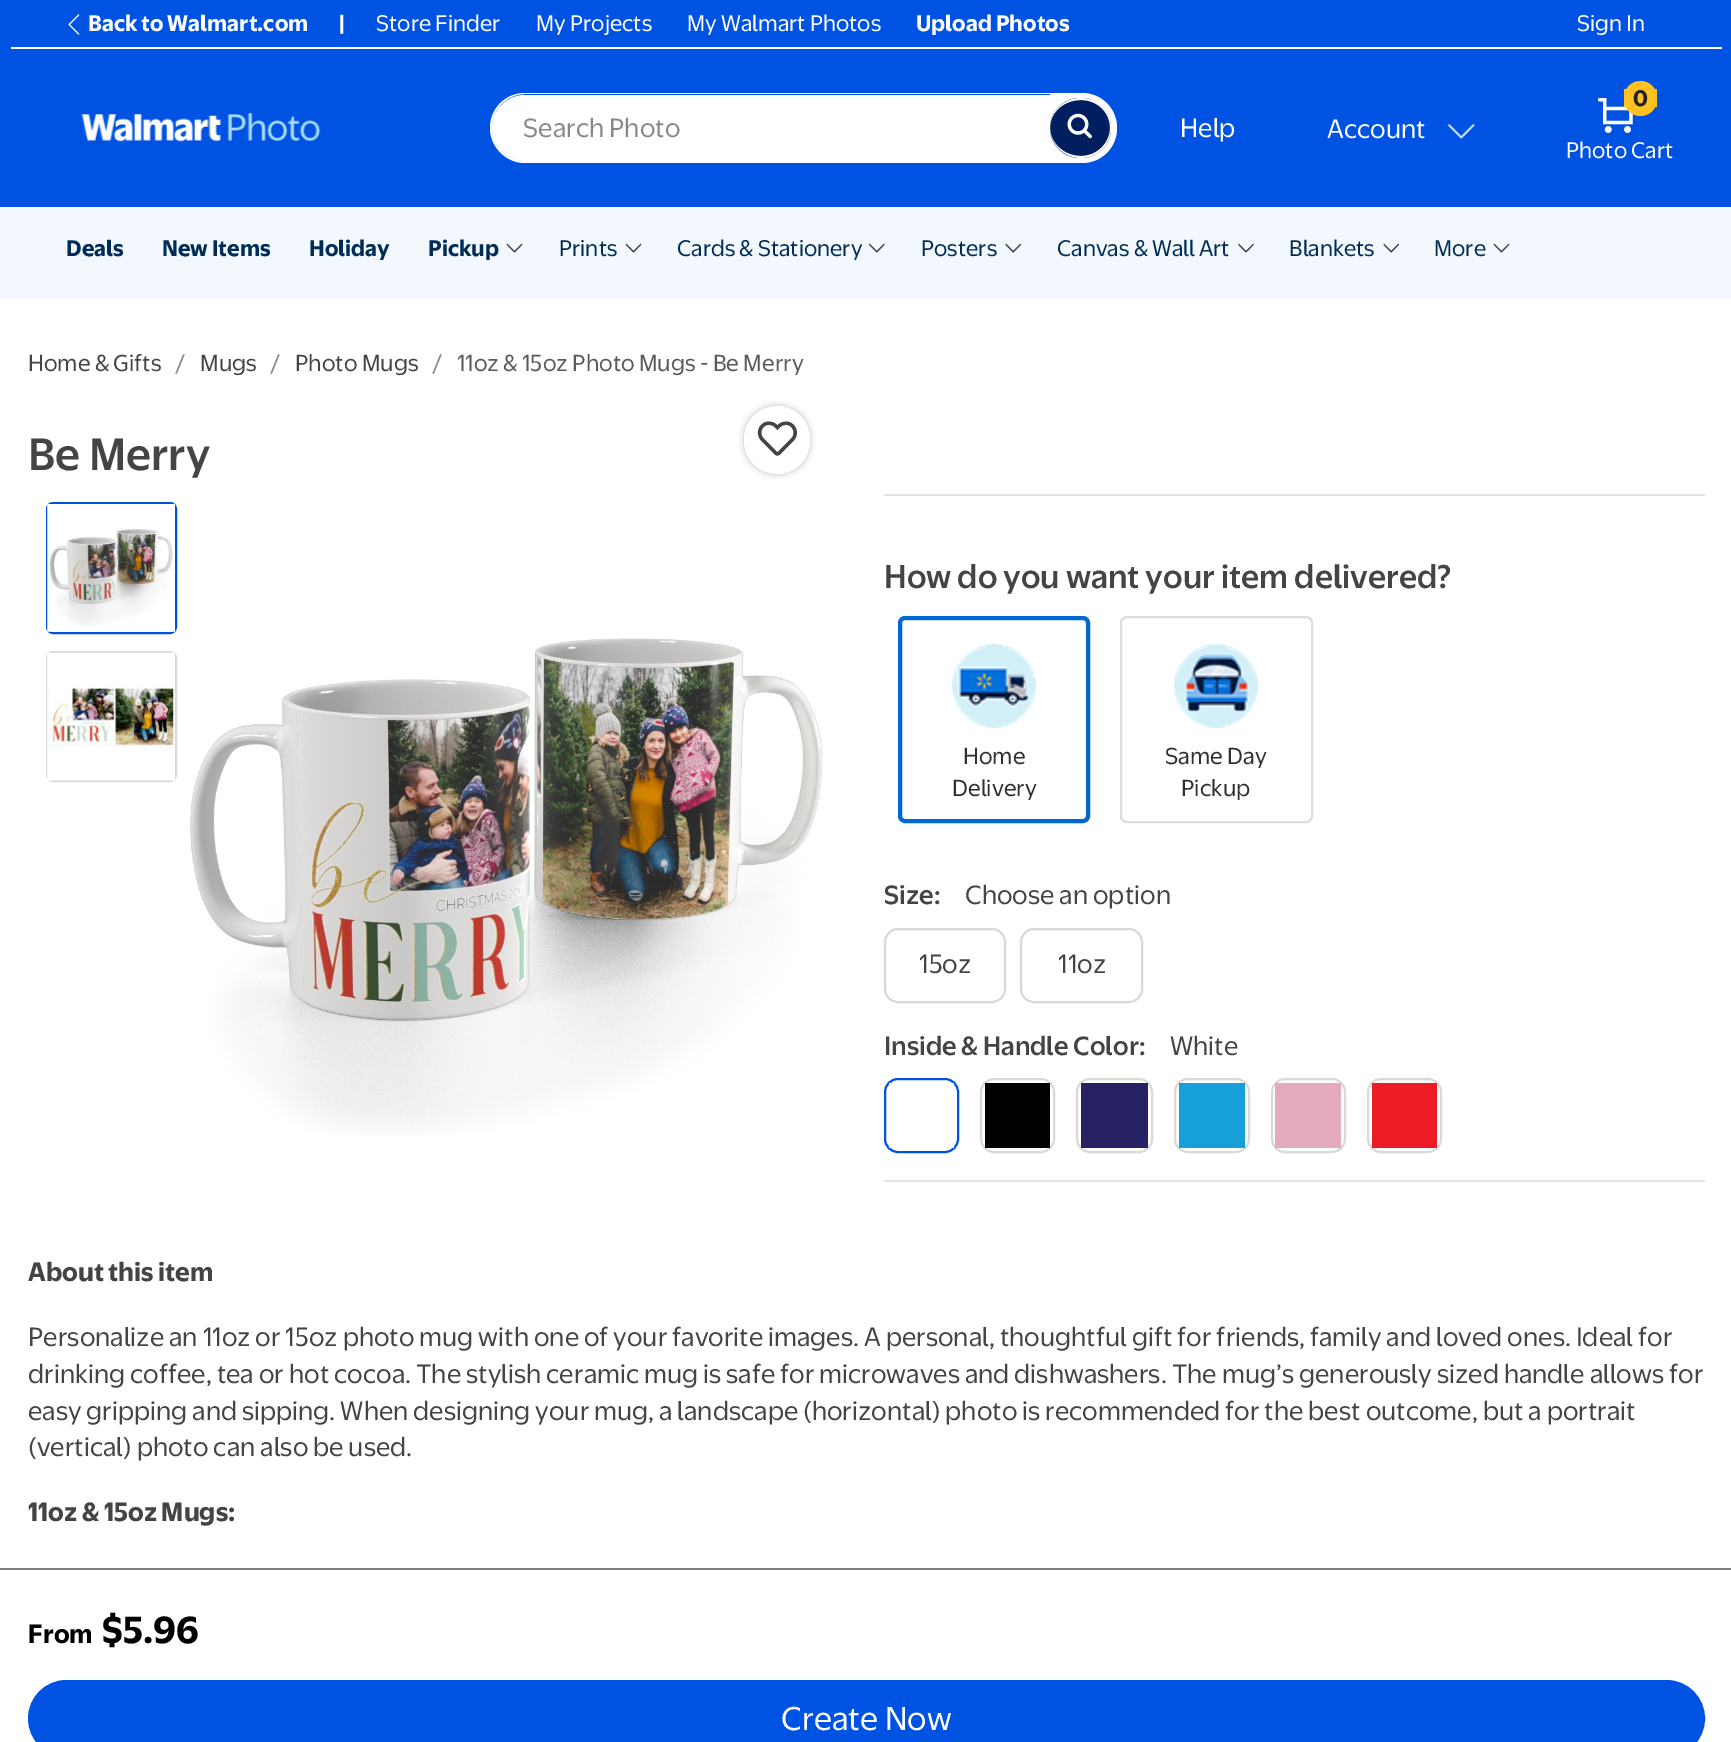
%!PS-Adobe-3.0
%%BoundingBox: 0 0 1731 1742
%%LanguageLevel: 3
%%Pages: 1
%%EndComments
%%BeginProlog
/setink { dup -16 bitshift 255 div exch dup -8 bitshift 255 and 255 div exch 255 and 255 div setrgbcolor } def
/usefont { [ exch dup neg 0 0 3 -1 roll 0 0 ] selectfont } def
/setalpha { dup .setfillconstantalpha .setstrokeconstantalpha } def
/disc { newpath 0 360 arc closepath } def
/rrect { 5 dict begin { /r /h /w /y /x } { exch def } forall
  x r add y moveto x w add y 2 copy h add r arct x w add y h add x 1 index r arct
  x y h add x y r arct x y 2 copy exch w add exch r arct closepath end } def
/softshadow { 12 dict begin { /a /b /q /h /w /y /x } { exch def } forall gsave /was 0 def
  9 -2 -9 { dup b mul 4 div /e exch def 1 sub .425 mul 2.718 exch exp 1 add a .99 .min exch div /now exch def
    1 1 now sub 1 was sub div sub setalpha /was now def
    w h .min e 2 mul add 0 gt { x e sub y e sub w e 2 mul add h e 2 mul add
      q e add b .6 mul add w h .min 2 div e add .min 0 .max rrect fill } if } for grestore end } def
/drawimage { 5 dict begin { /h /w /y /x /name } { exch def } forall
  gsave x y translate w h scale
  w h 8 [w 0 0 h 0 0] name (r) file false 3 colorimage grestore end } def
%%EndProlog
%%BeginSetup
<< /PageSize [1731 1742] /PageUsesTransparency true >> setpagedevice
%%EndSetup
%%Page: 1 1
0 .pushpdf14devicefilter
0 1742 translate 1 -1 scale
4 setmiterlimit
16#FFFFFF setink
0 0 1731 1742 rectfill
16#0053E2 setink
0 0 1731 207 rectfill
16#FFFFFF setink
11 47 1711 2 rectfill
(img1.raw) 68 14 12 21 drawimage
/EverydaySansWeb-Bold 21 usefont
88 31 moveto (Back to Walmart.com) show
339 31 moveto (|) show
/EverydaySansWeb-Regular 21 usefont
[
    [(Store Finder) 376 31]
    [(My Projects) 536 31]
    [(My Walmart Photos) 687 31]
] { aload pop moveto show } forall
/EverydaySansWeb-Bold 21 usefont
916 31 moveto (Upload Photos) show
/EverydaySansWeb-Regular 21 usefont
1577 31 moveto (Sign In) show
(img2.raw) 81 113 240 29 drawimage
525 95 moveto 1050 95 lineto 1050 161 lineto 525 161 lineto 507 161 492 146 492 128 curveto 492 110 507 95 525 95 curveto closepath fill
525 93 moveto 1050 93 lineto 1050 163 lineto 525 163 lineto 506 163 490 147 490 128 curveto 490 108 506 93 525 93 curveto closepath 525 94 moveto 1050 94 lineto 1050 161 lineto 525 161 lineto 507 161 492 146 492 128 curveto 492 109 507 94 525 94 curveto closepath eofill
/EverydaySansWeb-Regular 24.5 usefont
16#888888 setink
523 137 moveto (Search Photo) show
16#FFFFFF setink
1050 93 moveto 1082 93 lineto 1101.5 93 1117 108.5 1117 128 curveto 1117 147.5 1101.5 163 1082 163 curveto 1050 163 lineto closepath fill
16#001E60 setink
1050 98 61 60 30 rrect fill
16#FFFFFF setink
1081 98 moveto 1098 98 1111 111 1111 128 curveto 1111 144 1098 158 1081 158 curveto 1064 158 1050 144 1050 128 curveto 1050 111 1064 98 1081 98 curveto closepath 1081 100 moveto 1097 100 1110 112 1110 128 curveto 1110 143 1097 156 1081 156 curveto 1064 156 1050 143 1050 128 curveto 1050 112 1064 100 1081 100 curveto closepath eofill
(img3.raw) 1067 113 25 26 drawimage
1180 137 moveto (Help) show
1327 138 moveto (Account) show
(img4.raw) 1447 123 28 16 drawimage
(img5.raw) 1598 98 35 35 drawimage
16#FFC220 setink
1624 81 33 35 16.5 rrect fill
1654 89 3 18 rectfill
1624 89 3 18 rectfill
/EverydaySansWeb-Bold 21 usefont
16#222222 setink
1633 106 moveto (0) show
/EverydaySansWeb-Regular 21 usefont
16#FFFFFF setink
1566 158 moveto (Photo Cart) show
16#F2F8FD setink
0 207 1731 92 rectfill
/EverydaySansWeb-Bold 21 usefont
16#002D58 setink
[
    [(Deals) 66 256]
    [(New Items) 162 256]
    [(Holiday) 309 256]
    [(Pickup) 428 256]
] { aload pop moveto show } forall
(img6.raw) 506 243 17 10 drawimage
/EverydaySansWeb-Regular 21 usefont
559 256 moveto (Prints) show
(img6.raw) 625 243 17 10 drawimage
677 256 moveto (Cards & Stationery) show
(img7.raw) 869 243 16 10 drawimage
921 256 moveto (Posters) show
(img8.raw) 1005 243 17 10 drawimage
1057 256 moveto (Canvas & Wall Art) show
(img9.raw) 1238 243 16 10 drawimage
1289 256 moveto (Blankets) show
(img10.raw) 1383 243 16 10 drawimage
1434 256 moveto (More) show
(img6.raw) 1493 243 17 10 drawimage
/EverydaySansWeb-Regular 21.5 usefont
16#444444 setink
28 371 moveto (Home & Gifts) show
16#888888 setink
175 371 moveto (/) show
16#444444 setink
200 371 moveto (Mugs) show
16#888888 setink
270 371 moveto (/) show
16#444444 setink
295 371 moveto (Photo Mugs) show
16#888888 setink
432 371 moveto (/) show
16#595959 setink
457 371 moveto (11oz & 15oz Photo Mugs - Be Merry) show
/EverydaySansWeb-Medium 42 usefont
16#444444 setink
28 470 moveto (Be Merry) show
16#222222 setink
744 406 66 68 33 3.5 0.3 softshadow
16#FFFFFF setink
744 406 66 68 33 rrect fill
(img11.raw) 757 421 40 35 drawimage
16#0053E2 setink
2 setlinewidth
47 503 129 130 6 rrect stroke
(img12.raw) 47 504 128 128 drawimage
16#D9D9D9 setink
47 652 129 129 6 rrect stroke
(img13.raw) 47 652 128 129 drawimage
(img14.raw) 190 638 633 498 drawimage
16#E3E3E3 setink
884 494 821 2 rectfill
884 1180 821 2 rectfill
/EverydaySansWeb-Medium 30.6 usefont
16#444444 setink
884 588 moveto (How do you want your item delivered?) show
16#0068D2 setink
4 setlinewidth
900 618 188 203 5 rrect stroke
16#E9F8FC setink
994 686 42 disc fill
(img15.raw) 952 644 84 84 drawimage
/EverydaySansWeb-Regular 21.5 usefont
16#2E2F32 setink
963 764 moveto (Home) show
952 796 moveto (Delivery) show
16#DDDDDD setink
2 setlinewidth
1121 617 191 205 6 rrect stroke
16#E9F8FC setink
1216 686 42 disc fill
(img16.raw) 1174 644 85 84 drawimage
16#2E2F32 setink
1165 764 moveto (Same Day) show
1181 796 moveto (Pickup) show
/EverydaySansWeb-Medium 24.5 usefont
16#444444 setink
884 904 moveto (Size:) show
/EverydaySansWeb-Regular 24.5 usefont
965 904 moveto (Choose an option) show
16#D9D9D9 setink
885 929 120 73 13 rrect stroke
16#444444 setink
919 973 moveto (15oz) show
16#D9D9D9 setink
1021 929 121 73 13 rrect stroke
16#444444 setink
1058 973 moveto (11oz) show
/EverydaySansWeb-Medium 24.5 usefont
884 1055 moveto (Inside & Handle Color:) show
/EverydaySansWeb-Regular 24.5 usefont
1170 1055 moveto (White) show
16#0053E2 setink
885 1079 73 73 13 rrect stroke
16#FFFFFF setink
889 1083 65 65 rectfill
16#D9D9D9 setink
981 1079 73 73 13 rrect stroke
16#000000 setink
985 1083 65 65 rectfill
16#D9D9D9 setink
1077 1079 75 73 13 rrect stroke
16#262264 setink
1081 1083 67 65 rectfill
16#D9D9D9 setink
1175 1079 74 73 13 rrect stroke
16#179FDA setink
1179 1083 66 65 rectfill
16#D9D9D9 setink
1272 1079 73 73 13 rrect stroke
16#E4ABBE setink
1275 1083 66 65 rectfill
16#D9D9D9 setink
1368 1079 73 73 13 rrect stroke
16#EC1C24 setink
1372 1083 65 65 rectfill
16#808080 setink
0 1568 1731 2 rectfill
/EverydaySansWeb-Bold 24.5 usefont
16#000000 setink
28 1643 moveto (From) show
/EverydaySansWeb-Bold 35 usefont
102 1643 moveto ($5.96) show
16#0053E2 setink
29 1681 1675 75 37.5 rrect gsave fill grestore
stroke
/EverydaySansWeb-Regular 30.6 usefont
16#FFFFFF setink
781 1730 moveto (Create Now) show
/EverydaySansWeb-Bold 24.5 usefont
16#444444 setink
28 1281 moveto (About this item) show
/EverydaySansWeb-Regular 24.5 usefont
[
    [(Personalize an 11oz or 15oz photo mug with one of your favorite images. A personal, thoughtful gift for friends, family and loved ones. Ideal for) 28 1346]
    [(drinking coffee, tea or hot cocoa. The stylish ceramic mug is safe for microwaves and dishwashers. The mug’s generously sized handle allows for) 28 1383]
    [(easy gripping and sipping. When designing your mug, a landscape \(horizontal\) photo is recommended for the best outcome, but a portrait) 28 1420]
    [(\(vertical\) photo can also be used.) 28 1456]
] { aload pop moveto show } forall
/EverydaySansWeb-Bold 24.5 usefont
28 1521 moveto (11oz & 15oz Mugs:) show
.poppdf14devicefilter showpage
%%EOF
